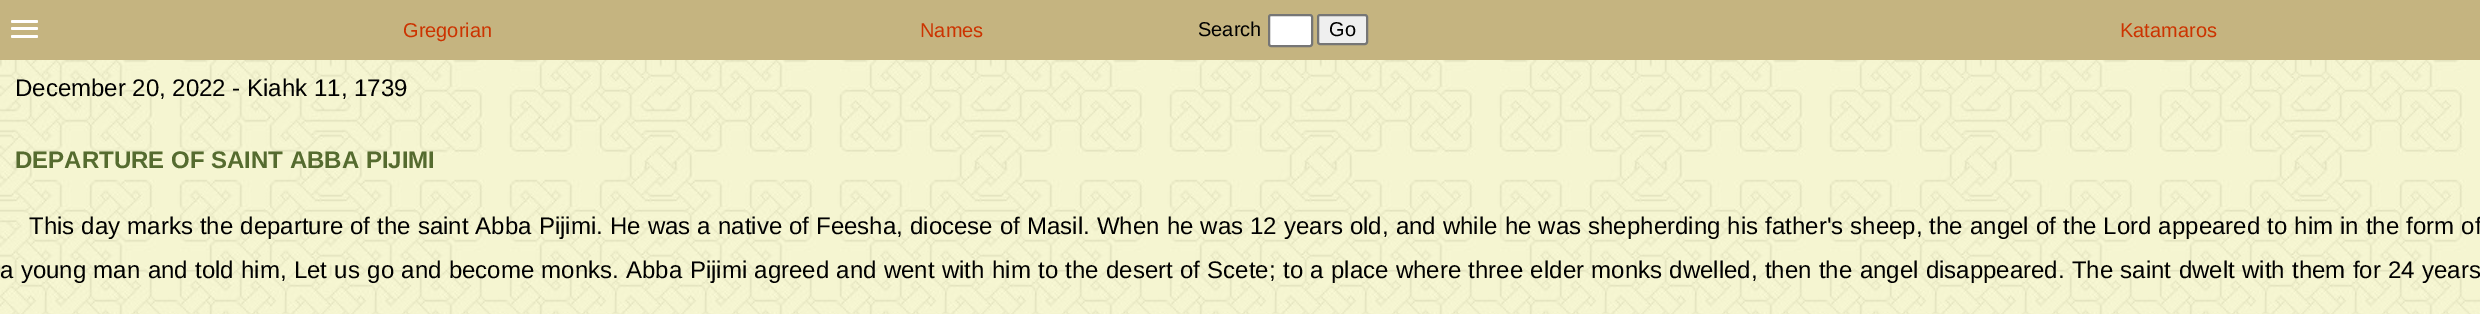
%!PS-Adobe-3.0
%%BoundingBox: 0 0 2480 314
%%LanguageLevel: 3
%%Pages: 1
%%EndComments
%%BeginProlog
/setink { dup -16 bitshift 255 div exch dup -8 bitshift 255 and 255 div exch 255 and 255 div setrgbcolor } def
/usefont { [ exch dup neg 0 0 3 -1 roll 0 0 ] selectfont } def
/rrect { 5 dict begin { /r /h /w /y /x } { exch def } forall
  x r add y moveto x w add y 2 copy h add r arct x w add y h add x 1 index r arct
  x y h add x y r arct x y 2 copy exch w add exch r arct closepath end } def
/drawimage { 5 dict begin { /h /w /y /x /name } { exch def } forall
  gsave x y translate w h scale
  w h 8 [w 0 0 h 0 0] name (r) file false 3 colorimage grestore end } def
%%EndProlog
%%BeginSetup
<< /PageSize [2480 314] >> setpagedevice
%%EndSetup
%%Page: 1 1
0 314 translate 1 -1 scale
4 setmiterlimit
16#FFFFFF setink
0 0 2480 314 rectfill
(img1.raw) 0 60 2480 254 drawimage
16#C5B480 setink
0 0 2480 60 rectfill
16#FFFFFF setink
11 20 27 3 1.5 rrect fill
11 27 27 3 1.5 rrect fill
11 35 27 3 1.5 rrect fill
/LiberationSans-Regular 20 usefont
16#CC3300 setink
403 37 moveto (Gregorian) show
920 37 moveto (Names) show
16#000000 setink
1198 36 moveto (Search) show
16#FFFFFF setink
1269 15 43 31 2 rrect gsave fill grestore
16#767676 setink
2 setlinewidth
stroke
16#EFEFEF setink
1318 15 49 29 2 rrect gsave fill grestore
16#767676 setink
stroke
16#000000 setink
1329 36 moveto (Go) show
16#CC3300 setink
2120 37 moveto (Katamaros) show
/LiberationSans-Regular 24 usefont
16#000000 setink
15 96 moveto (December 20, 2022 - Kiahk 11, 1739) show
/LiberationSans-Bold 24 usefont
16#556B2F setink
15 168 moveto (DEPARTURE OF SAINT ABBA PIJIMI) show
/LiberationSans-Regular 24 usefont
16#000000 setink
29 234 moveto 0.45 0 32 (This day marks the departure of the saint Abba Pijimi. He was a native of Feesha, diocese of Masil. When he was 12 years old, and while he was shepherding his father's sheep, the angel of the Lord appeared to him in the form of) widthshow
0 278 moveto 0.7 0 32 (a young man and told him, Let us go and become monks. Abba Pijimi agreed and went with him to the desert of Scete; to a place where three elder monks dwelled, then the angel disappeared. The saint dwelt with them for 24 years) widthshow
showpage
%%EOF
